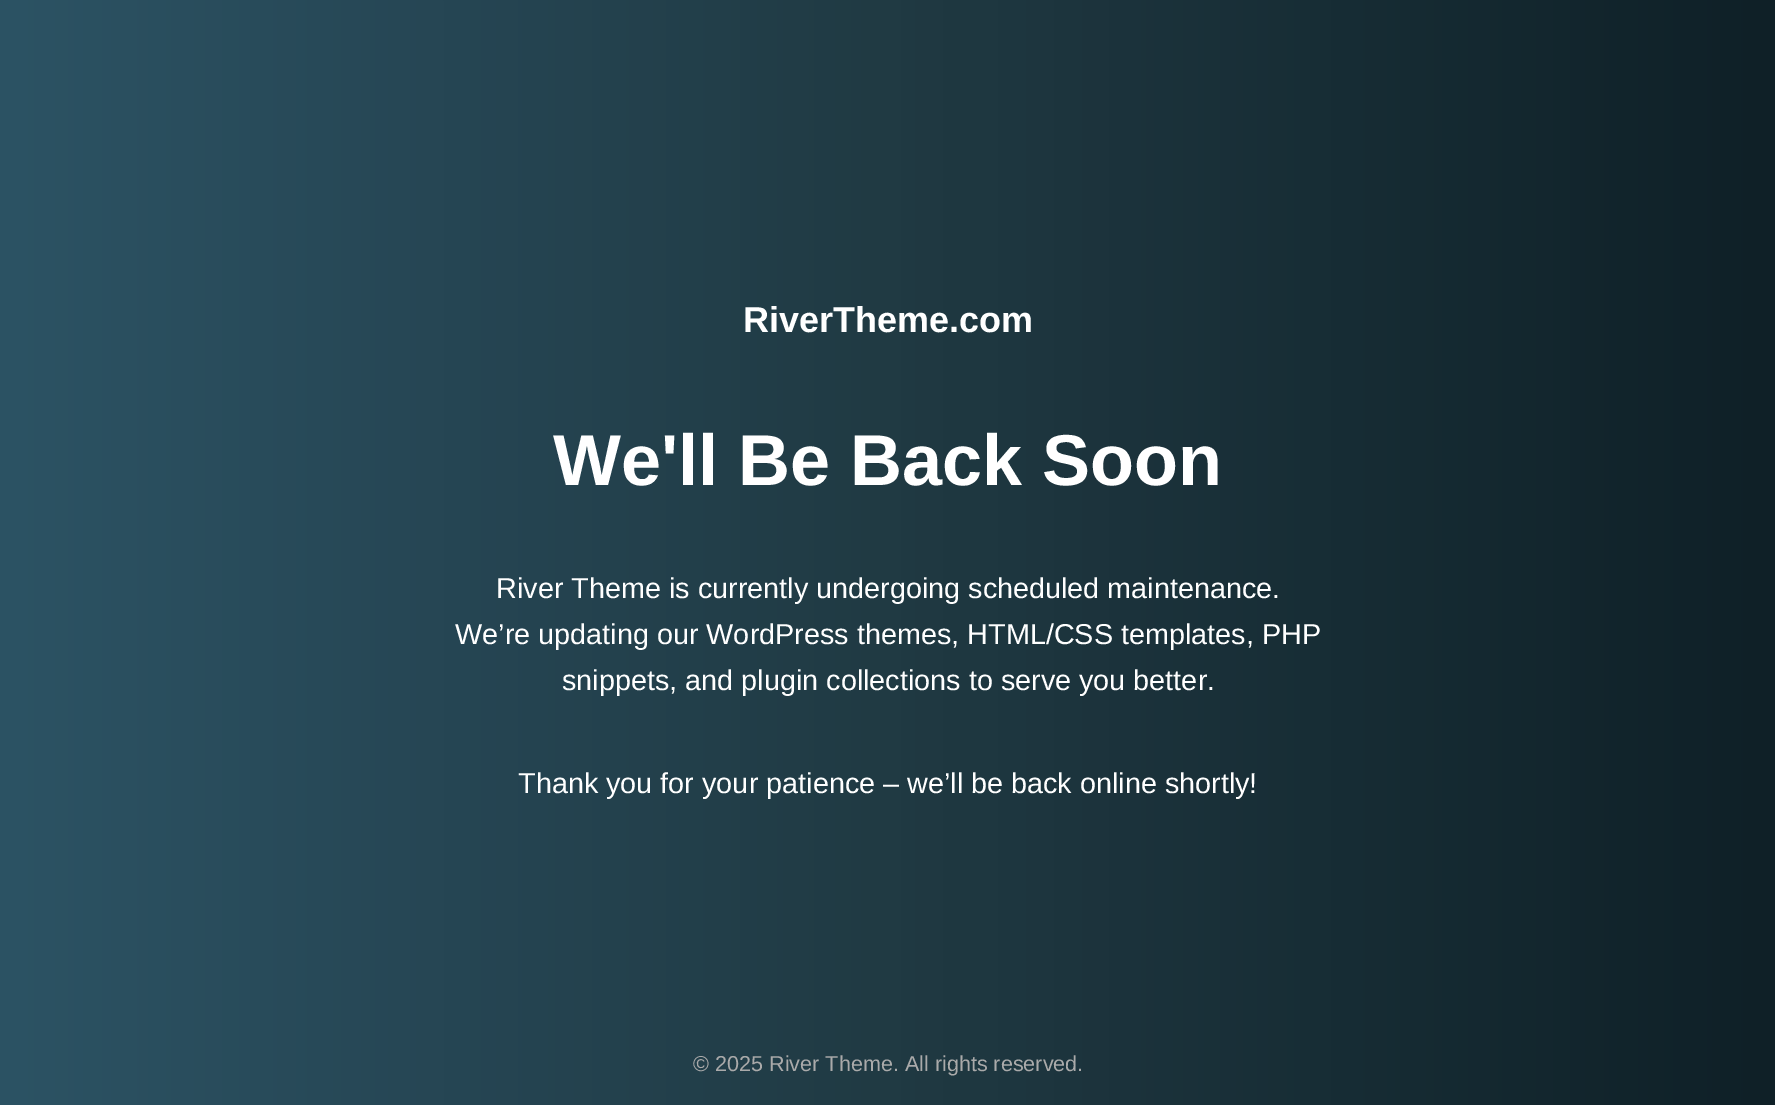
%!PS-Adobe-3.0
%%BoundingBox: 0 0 1775 1105
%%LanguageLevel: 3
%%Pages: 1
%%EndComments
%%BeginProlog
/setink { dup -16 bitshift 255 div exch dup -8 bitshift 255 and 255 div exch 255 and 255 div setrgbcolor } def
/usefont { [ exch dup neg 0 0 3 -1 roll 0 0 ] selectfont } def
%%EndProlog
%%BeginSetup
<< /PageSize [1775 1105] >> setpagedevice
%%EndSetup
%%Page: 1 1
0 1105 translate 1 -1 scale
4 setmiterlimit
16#FFFFFF setink
0 0 1775 1105 rectfill
gsave 0 0 moveto 1775 0 lineto 1775 1105 lineto 0 1105 lineto closepath clip newpath
<< /ShadingType 2 /ColorSpace /DeviceRGB /Coords [0 553 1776 553] /Extend [true true] /Function << /FunctionType 3 /Domain [0 1] /Functions [<< /FunctionType 2 /Domain [0 1] /C0 [0.173 0.325 0.392] /C1 [0.125 0.227 0.263] /N 1 >> << /FunctionType 2 /Domain [0 1] /C0 [0.125 0.227 0.263] /C1 [0.059 0.125 0.153] /N 1 >>] /Bounds [0.5] /Encode [0 1 0 1] >> >> shfill grestore
/LiberationSans-Bold 36 usefont
743 332 moveto (RiverTheme.com) show
/LiberationSans-Bold 72 usefont
553 485 moveto (We'll Be Back Soon) show
/LiberationSans-Regular 28.8 usefont
[
    [(River Theme is currently undergoing scheduled maintenance.) 496 598]
    [(We’re updating our WordPress themes, HTML/CSS templates, PHP) 455 644]
    [(snippets, and plugin collections to serve you better.) 562 690]
    [(Thank you for your patience – we’ll be back online shortly!) 518 793]
] { aload pop moveto show } forall
/LiberationSans-Regular 21.6 usefont
16#AAAAAA setink
693 1071 moveto (© 2025 River Theme. All rights reserved.) show
showpage
%%EOF
